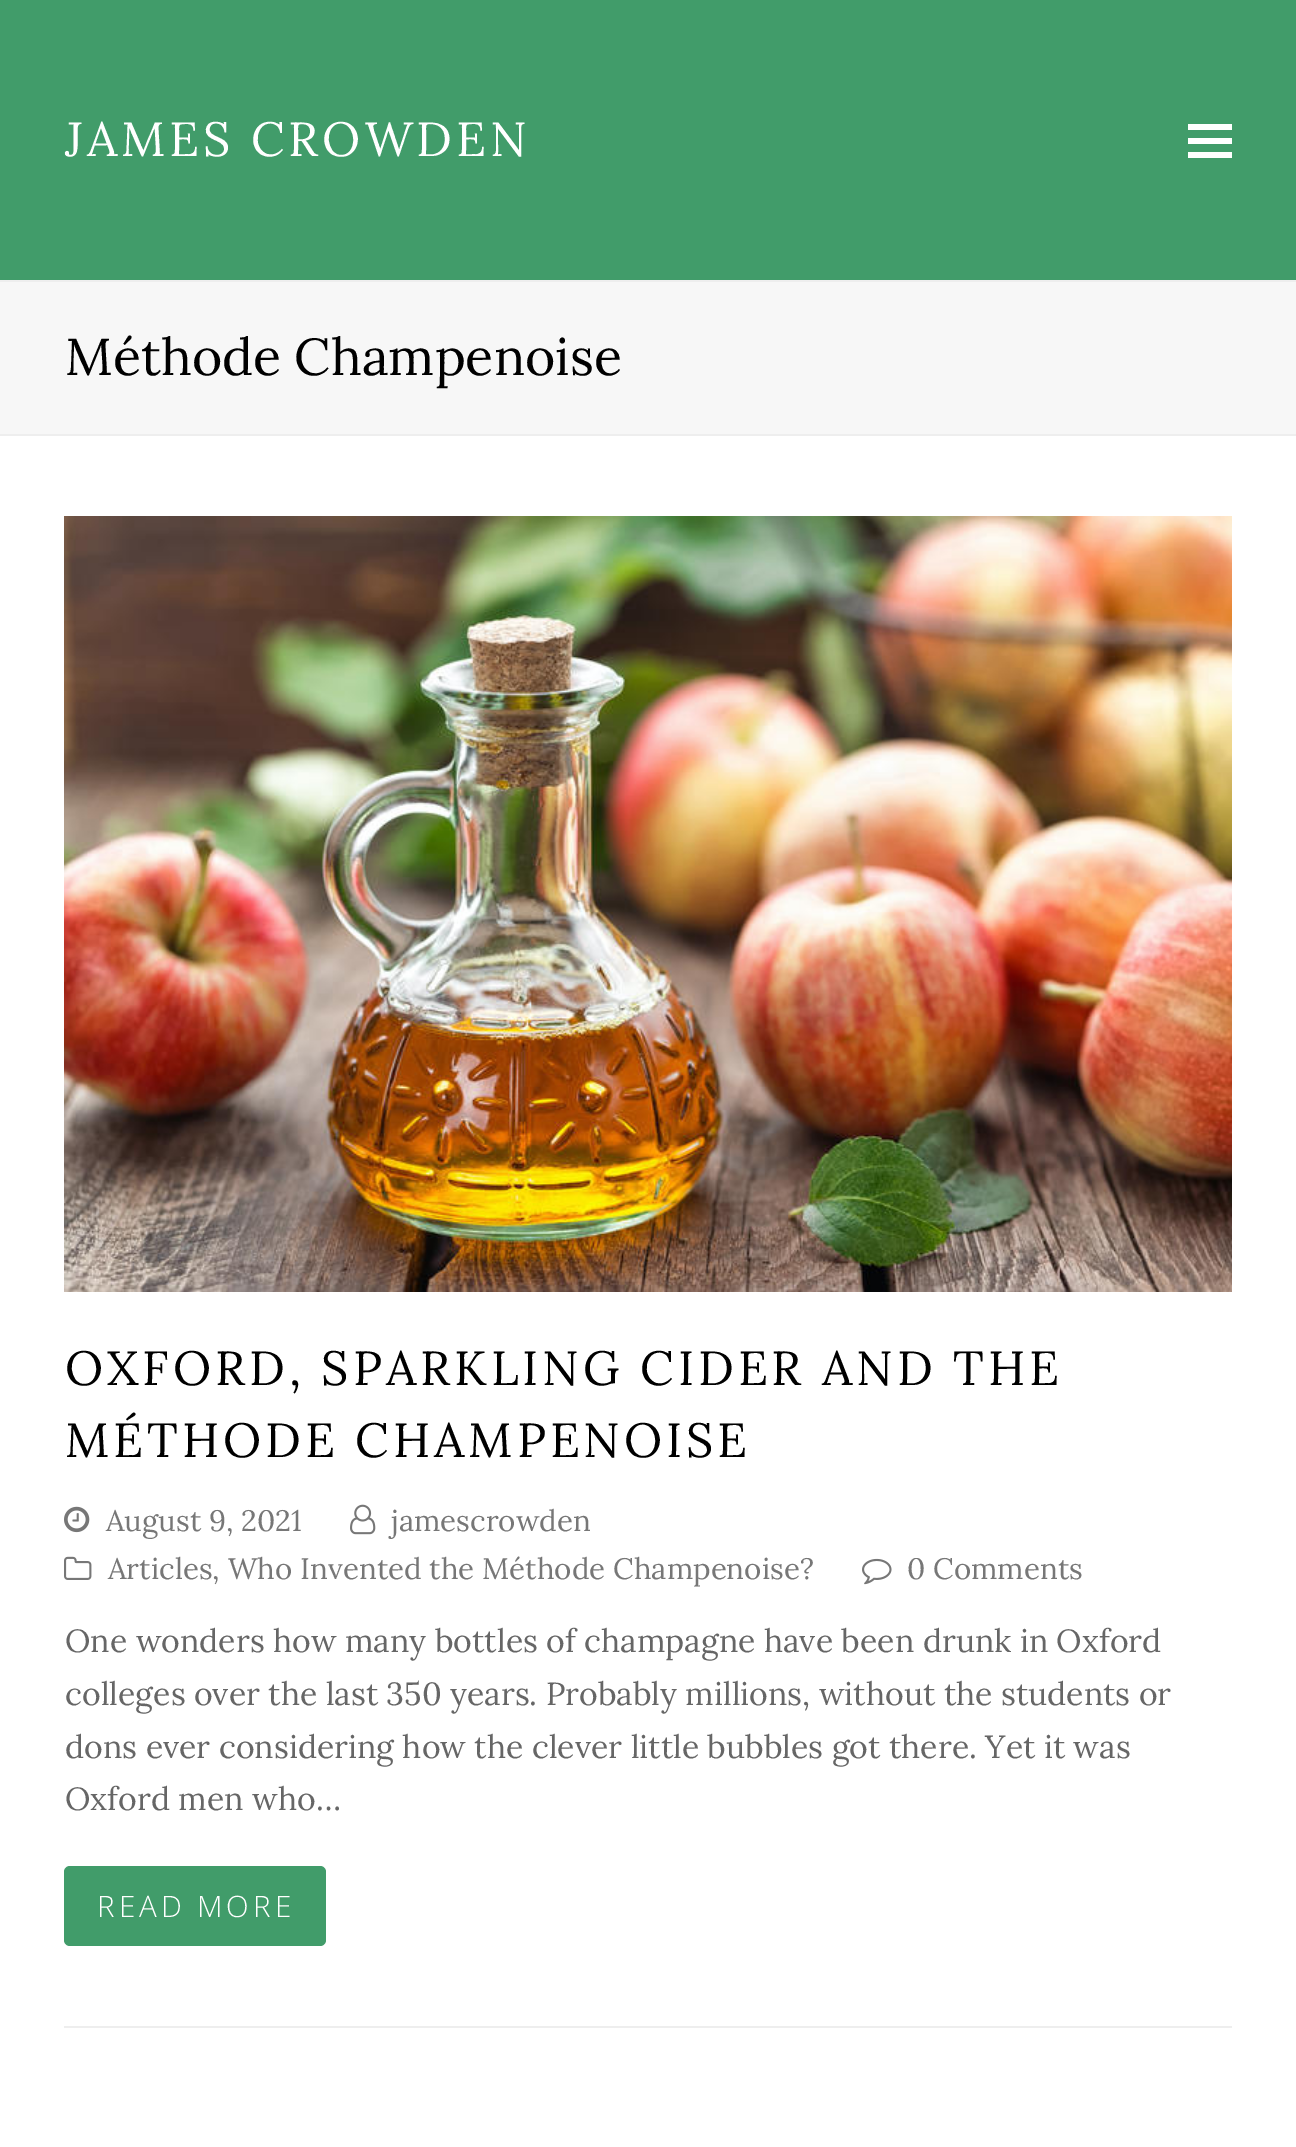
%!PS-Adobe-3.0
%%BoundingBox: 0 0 1296 2147
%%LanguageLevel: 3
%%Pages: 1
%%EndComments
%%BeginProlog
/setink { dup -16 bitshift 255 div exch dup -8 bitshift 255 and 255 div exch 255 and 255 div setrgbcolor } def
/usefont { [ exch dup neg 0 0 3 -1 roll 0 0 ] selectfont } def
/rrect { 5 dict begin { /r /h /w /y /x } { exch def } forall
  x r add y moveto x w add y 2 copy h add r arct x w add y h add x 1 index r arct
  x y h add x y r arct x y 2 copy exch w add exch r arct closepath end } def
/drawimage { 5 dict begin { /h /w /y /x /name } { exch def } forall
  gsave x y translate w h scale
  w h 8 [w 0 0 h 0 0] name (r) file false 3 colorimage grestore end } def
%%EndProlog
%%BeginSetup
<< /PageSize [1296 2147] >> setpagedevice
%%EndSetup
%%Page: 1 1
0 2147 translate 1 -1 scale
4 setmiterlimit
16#FFFFFF setink
0 0 1296 2147 rectfill
16#419C6A setink
0 0 1296 280 rectfill
/Lora-Regular 48 usefont
16#FFFFFF setink
65 156 moveto 4 0 (JAMES CROWDEN) ashow
[
    [1188 138 44 6 16#FFFFFF]
    [1188 124 44 6 16#FFFFFF]
    [1188 152 44 6 16#FFFFFF]
    [0 282 1296 152 16#F7F7F7]
    [0 280 1296 2 16#EEEEEE]
    [0 434 1296 2 16#EEEEEE]
] { aload pop setink rectfill } forall
/Lora-Regular 51.75 usefont
16#000000 setink
65 375 moveto (Méthode Champenoise) show
16#EEEEEE setink
64 2026 1168 2 rectfill
(img1.raw) 64 516 1168 776 drawimage
/Lora-Regular 48 usefont
16#000000 setink
65 1385 moveto 4 0 (OXFORD, SPARKLING CIDER AND THE) ashow
65 1457 moveto 4 0 (MÉTHODE CHAMPENOISE) ashow
(img2.raw) 64 1506 26 27 drawimage
/Lora-Regular 29.5 usefont
16#777777 setink
106 1531 moveto (August 9, 2021) show
(img3.raw) 350 1504 26 31 drawimage
391 1531 moveto (jamescrowden) show
(img4.raw) 64 1556 28 24 drawimage
108 1579 moveto (Articles,) show
228 1579 moveto (Who Invented the Méthode Champenoise?) show
(img5.raw) 862 1558 30 27 drawimage
907 1579 moveto (0 Comments) show
/Lora-Regular 32 usefont
16#666666 setink
[
    [(One wonders how many bottles of champagne have been drunk in Oxford) 65 1652]
    [(colleges over the last 350 years. Probably millions, without the students or) 65 1705]
    [(dons ever considering how the clever little bubbles got there. Yet it was) 65 1758]
    [(Oxford men who…) 65 1810]
] { aload pop moveto show } forall
16#419C6A setink
64 1866 262 80 6 rrect fill
/OpenSans-Light 29.5 usefont
16#FFFFFF setink
97 1917 moveto 4 0 (READ MORE) ashow
showpage
%%EOF
